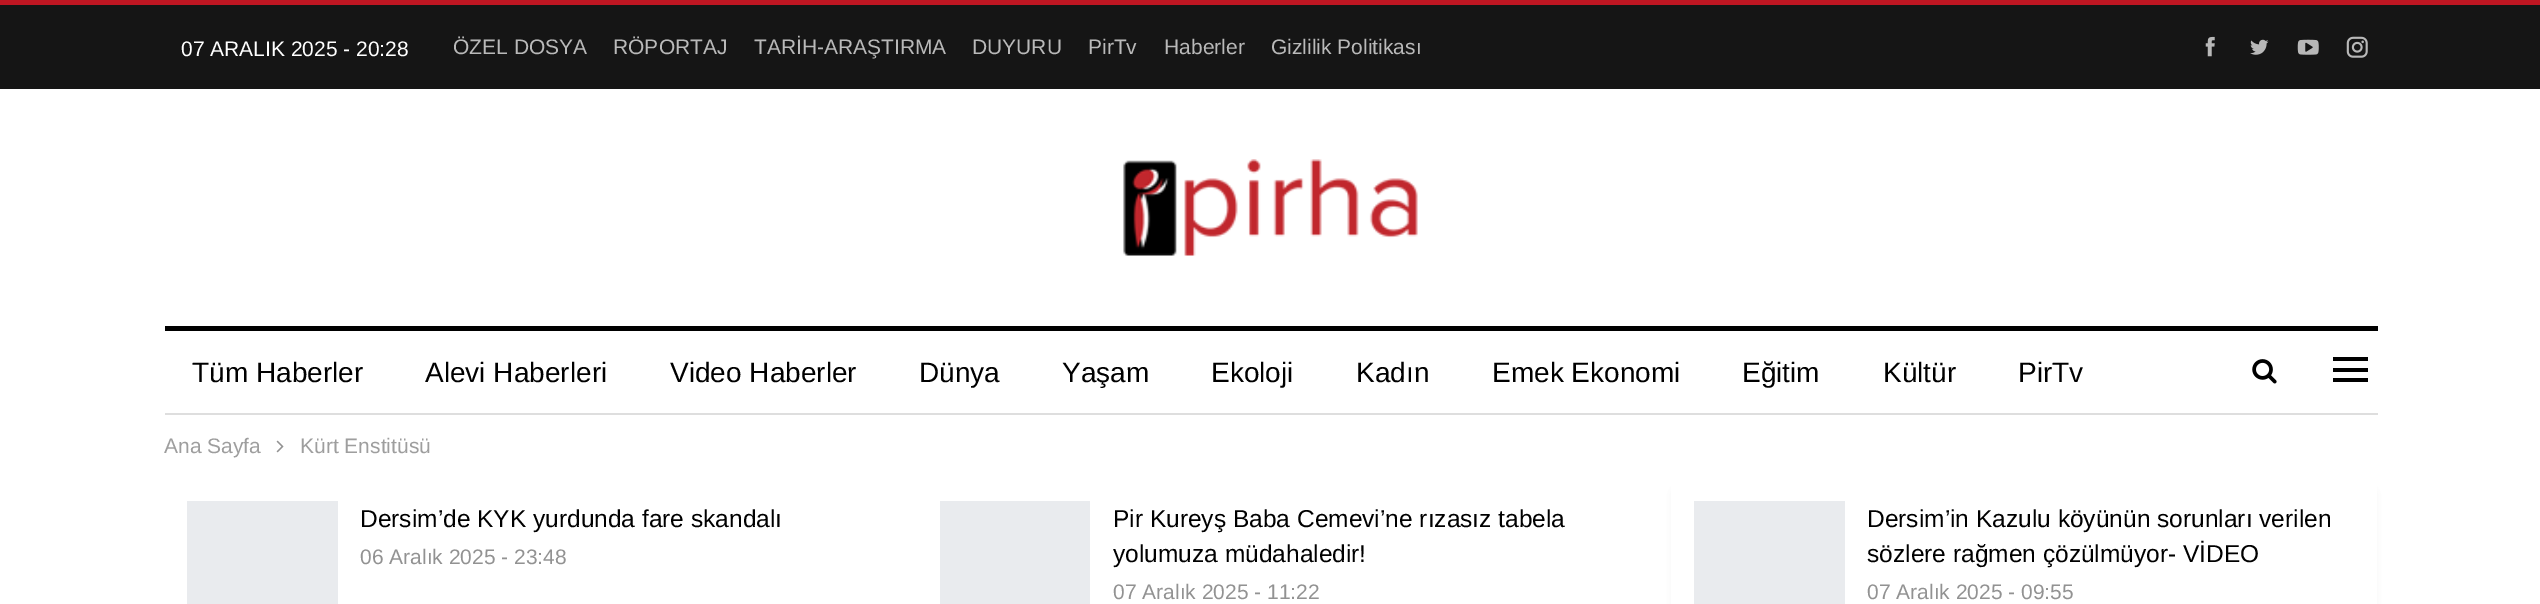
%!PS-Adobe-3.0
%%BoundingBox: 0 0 2540 604
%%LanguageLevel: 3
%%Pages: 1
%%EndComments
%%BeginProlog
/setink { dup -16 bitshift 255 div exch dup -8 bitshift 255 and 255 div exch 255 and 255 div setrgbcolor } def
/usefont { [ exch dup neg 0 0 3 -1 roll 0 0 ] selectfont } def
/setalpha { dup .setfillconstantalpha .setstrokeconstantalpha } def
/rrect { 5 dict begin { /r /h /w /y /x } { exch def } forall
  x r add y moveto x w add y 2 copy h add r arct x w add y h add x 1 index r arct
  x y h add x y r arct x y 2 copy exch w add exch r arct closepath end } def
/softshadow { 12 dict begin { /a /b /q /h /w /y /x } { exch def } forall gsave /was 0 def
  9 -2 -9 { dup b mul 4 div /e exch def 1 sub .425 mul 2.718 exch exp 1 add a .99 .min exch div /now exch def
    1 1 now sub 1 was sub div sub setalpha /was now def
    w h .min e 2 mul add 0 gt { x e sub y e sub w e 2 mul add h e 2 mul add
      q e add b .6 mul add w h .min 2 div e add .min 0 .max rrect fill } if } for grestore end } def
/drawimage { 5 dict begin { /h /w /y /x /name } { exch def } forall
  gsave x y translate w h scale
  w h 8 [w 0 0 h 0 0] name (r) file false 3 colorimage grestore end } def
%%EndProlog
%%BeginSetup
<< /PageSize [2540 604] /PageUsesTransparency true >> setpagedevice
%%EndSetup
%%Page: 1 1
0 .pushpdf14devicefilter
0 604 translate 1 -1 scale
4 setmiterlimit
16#FFFFFF setink
0 0 2540 604 rectfill
16#BE1622 setink
0 0 2540 5 rectfill
16#151515 setink
0 5 2540 84 rectfill
/LiberationSans-Regular 21 usefont
16#FFFFFF setink
181 56 moveto (07 ARALIK 2025 - 20:28) show
16#B9B9B9 setink
[
    [(ÖZEL DOSYA) 453 54]
    [(RÖPORTAJ) 613 54]
    [(TARİH-ARAŞTIRMA) 754 54]
    [(DUYURU) 972 54]
    [(PirTv) 1088 54]
    [(Haberler) 1164 54]
    [(Gizlilik Politikası) 1271 54]
] { aload pop moveto show } forall
(img1.raw) 2205 36 10 21 drawimage
(img2.raw) 2250 39 19 16 drawimage
(img3.raw) 2297 39 22 16 drawimage
(img4.raw) 2346 36 22 22 drawimage
(img5.raw) 1123 159 295 97 drawimage
16#000000 setink
165 326 2213 5 rectfill
16#DEDEDE setink
165 413 2213 2 rectfill
/LiberationSans-Regular 28 usefont
16#000000 setink
[
    [(Tüm Haberler) 192 382]
    [(Alevi Haberleri) 425 382]
    [(Video Haberler) 670 382]
    [(Dünya) 919 382]
    [(Yaşam) 1062 382]
    [(Ekoloji) 1211 382]
    [(Kadın) 1356 382]
    [(Emek Ekonomi) 1492 382]
    [(Eğitim) 1742 382]
    [(Kültür) 1883 382]
    [(PirTv) 2018 382]
] { aload pop moveto show } forall
(img6.raw) 2252 359 25 25 drawimage
[
    [2333 368 35 4 16#000000]
    [2333 357 35 4 16#000000]
    [2333 378 35 4 16#000000]
] { aload pop setink rectfill } forall
/LiberationSans-Regular 21 usefont
16#9E9E9E setink
164 453 moveto (Ana Sayfa) show
(img7.raw) 276 440 8 13 drawimage
300 453 moveto (Kürt Enstitüsü) show
16#E9EBEE setink
187 501 151 103 rectfill
/LiberationSans-Regular 24.5 usefont
16#000000 setink
360 527 moveto (Dersim’de KYK yurdunda fare skandalı) show
/LiberationSans-Regular 21 usefont
16#929292 setink
360 564 moveto (06 Aralık 2025 - 23:48) show
16#E9EBEE setink
940 501 150 103 rectfill
/LiberationSans-Regular 24.5 usefont
16#000000 setink
1113 527 moveto (Pir Kureyş Baba Cemevi’ne rızasız tabela) show
1113 562 moveto (yolumuza müdahaledir!) show
/LiberationSans-Regular 21 usefont
16#929292 setink
1113 599 moveto (07 Aralık 2025 - 11:22) show
16#CCCCCC setink
1680 494 688 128 0 6 1 softshadow
16#FFFFFF setink
1671 478 706 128 2 rrect fill
16#E9EBEE setink
1694 501 151 103 rectfill
/LiberationSans-Regular 24.5 usefont
16#000000 setink
1867 527 moveto (Dersim’in Kazulu köyünün sorunları verilen) show
1867 562 moveto (sözlere rağmen çözülmüyor- VİDEO) show
/LiberationSans-Regular 21 usefont
16#929292 setink
1867 599 moveto (07 Aralık 2025 - 09:55) show
.poppdf14devicefilter showpage
%%EOF
